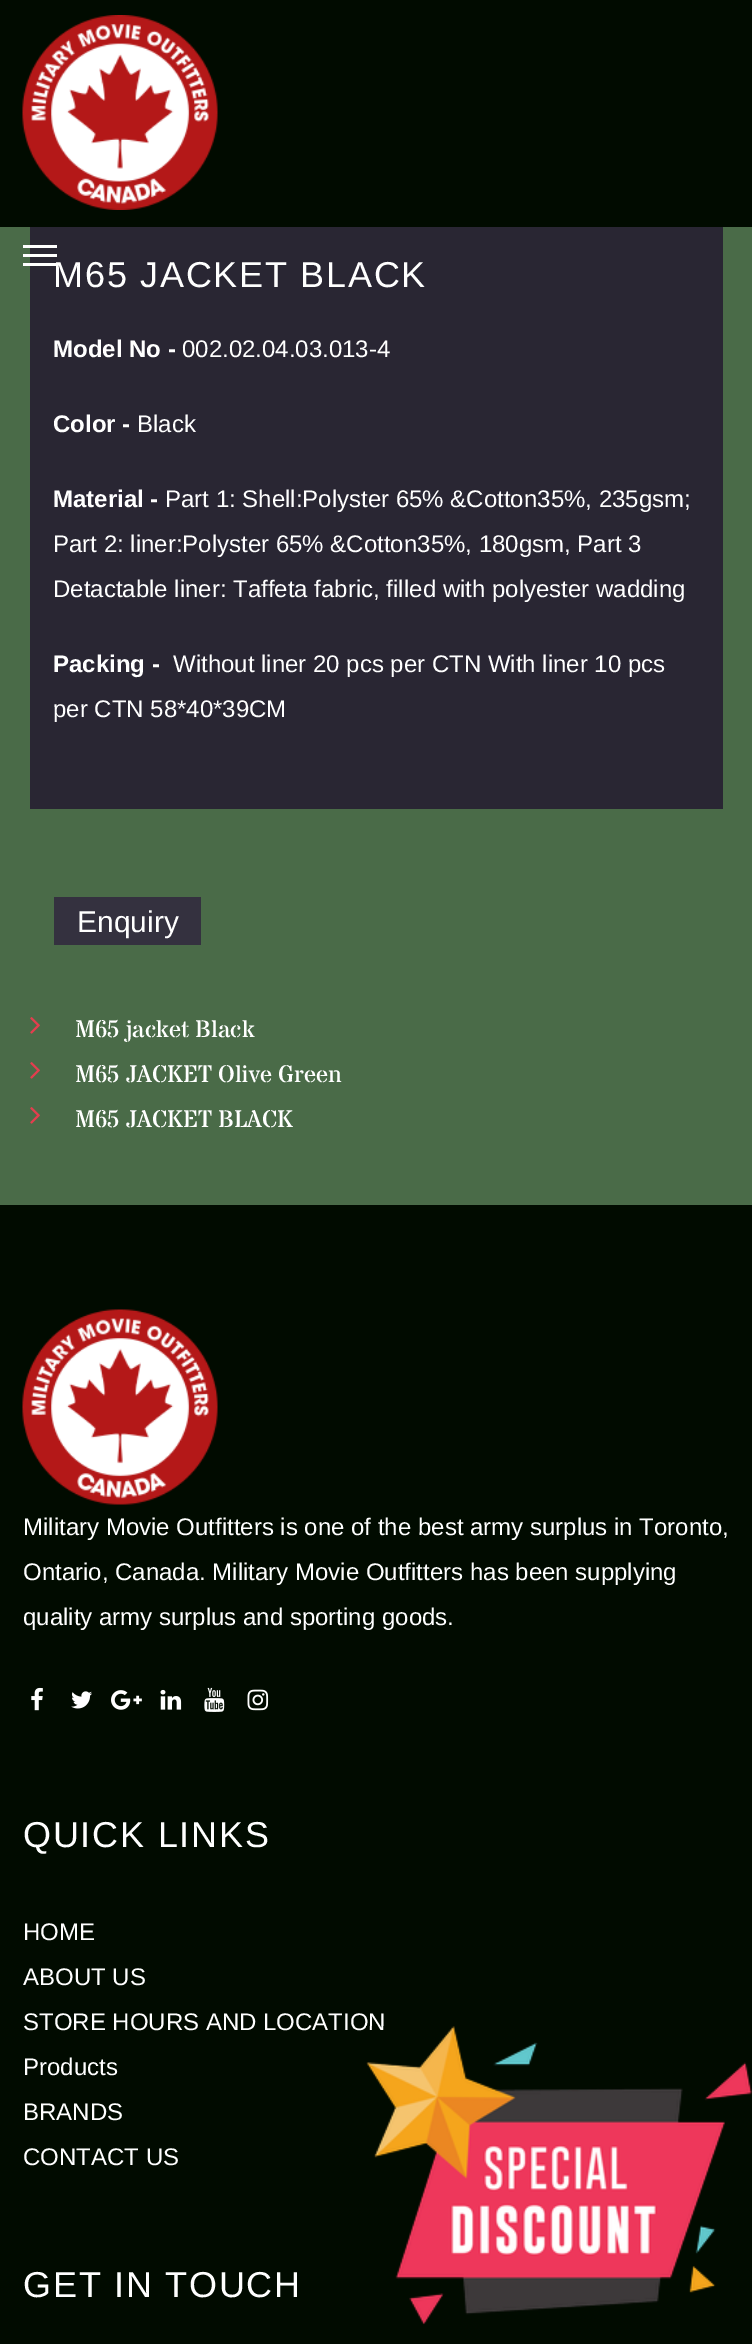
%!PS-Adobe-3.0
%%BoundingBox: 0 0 752 2344
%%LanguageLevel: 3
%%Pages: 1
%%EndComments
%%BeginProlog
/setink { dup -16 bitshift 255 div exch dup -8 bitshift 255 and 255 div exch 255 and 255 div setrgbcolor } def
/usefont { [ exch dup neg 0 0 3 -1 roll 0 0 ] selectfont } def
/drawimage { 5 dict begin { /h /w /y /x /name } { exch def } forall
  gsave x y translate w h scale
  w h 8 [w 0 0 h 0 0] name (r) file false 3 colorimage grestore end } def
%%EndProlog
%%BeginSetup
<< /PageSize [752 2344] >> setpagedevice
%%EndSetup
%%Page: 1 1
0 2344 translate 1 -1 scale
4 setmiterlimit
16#010B00 setink
0 0 752 2344 rectfill
(img1.raw) 22 15 196 195 drawimage
[
    [0 227 752 978 16#4A6B48]
    [30 227 693 582 16#292633]
    [23 245 34 3 16#FFFFFF]
    [23 254 34 3 16#FFFFFF]
    [23 263 34 3 16#FFFFFF]
] { aload pop setink rectfill } forall
/LiberationSans-Regular 36 usefont
53 287 moveto 1.75 0 (M65 JACKET BLACK) ashow
/LiberationSans-Bold 24 usefont
53 357 moveto (Model No -) show
/LiberationSans-Regular 24 usefont
182 357 moveto (002.02.04.03.013-4) show
/LiberationSans-Bold 24 usefont
53 432 moveto (Color -) show
/LiberationSans-Regular 24 usefont
137 432 moveto (Black) show
/LiberationSans-Bold 24 usefont
53 507 moveto (Material -) show
/LiberationSans-Regular 24 usefont
[
    [(Part 1: Shell:Polyster 65% &Cotton35%, 235gsm;) 165 507]
    [(Part 2: liner:Polyster 65% &Cotton35%, 180gsm, Part 3) 53 552]
    [(Detactable liner: Taffeta fabric, filled with polyester wadding) 53 597]
] { aload pop moveto show } forall
/LiberationSans-Bold 24 usefont
53 672 moveto (Packing -) show
/LiberationSans-Regular 24 usefont
173 672 moveto (Without liner 20 pcs per CTN With liner 10 pcs) show
53 717 moveto (per CTN 58*40*39CM) show
16#34313F setink
54 897 147 48 rectfill
/LiberationSans-Regular 30 usefont
16#FFFFFF setink
77 932 moveto (Enquiry) show
(img2.raw) 30 1017 10 17 drawimage
/StardosStencil-Regular 24 usefont
75 1037 moveto (M65 jacket Black) show
(img2.raw) 30 1062 10 17 drawimage
75 1082 moveto (M65 JACKET Olive Green) show
(img2.raw) 30 1107 10 17 drawimage
75 1127 moveto (M65 JACKET BLACK) show
(img3.raw) 22 1309 196 196 drawimage
/LiberationSans-Regular 24 usefont
[
    [(Military Movie Outfitters is one of the best army surplus in Toronto,) 23 1535]
    [(Ontario, Canada. Military Movie Outfitters has been supplying) 23 1580]
    [(quality army surplus and sporting goods.) 23 1625]
] { aload pop moveto show } forall
(img4.raw) 31 1687 12 24 drawimage
(img5.raw) 71 1691 21 18 drawimage
(img6.raw) 111 1690 31 20 drawimage
(img7.raw) 160 1689 22 21 drawimage
(img8.raw) 204 1687 21 25 drawimage
(img9.raw) 247 1689 22 22 drawimage
/LiberationSans-Regular 36 usefont
23 1847 moveto 1.75 0 (QUICK LINKS) ashow
/LiberationSans-Regular 24 usefont
[
    [(HOME) 23 1940]
    [(ABOUT US) 23 1985]
    [(STORE HOURS AND LOCATION) 23 2030]
    [(Products) 23 2075]
    [(BRANDS) 23 2120]
    [(CONTACT US) 23 2165]
] { aload pop moveto show } forall
/LiberationSans-Regular 36 usefont
23 2297 moveto 1.75 0 (GET IN TOUCH) ashow
(img10.raw) 366 2026 386 299 drawimage
showpage
%%EOF
